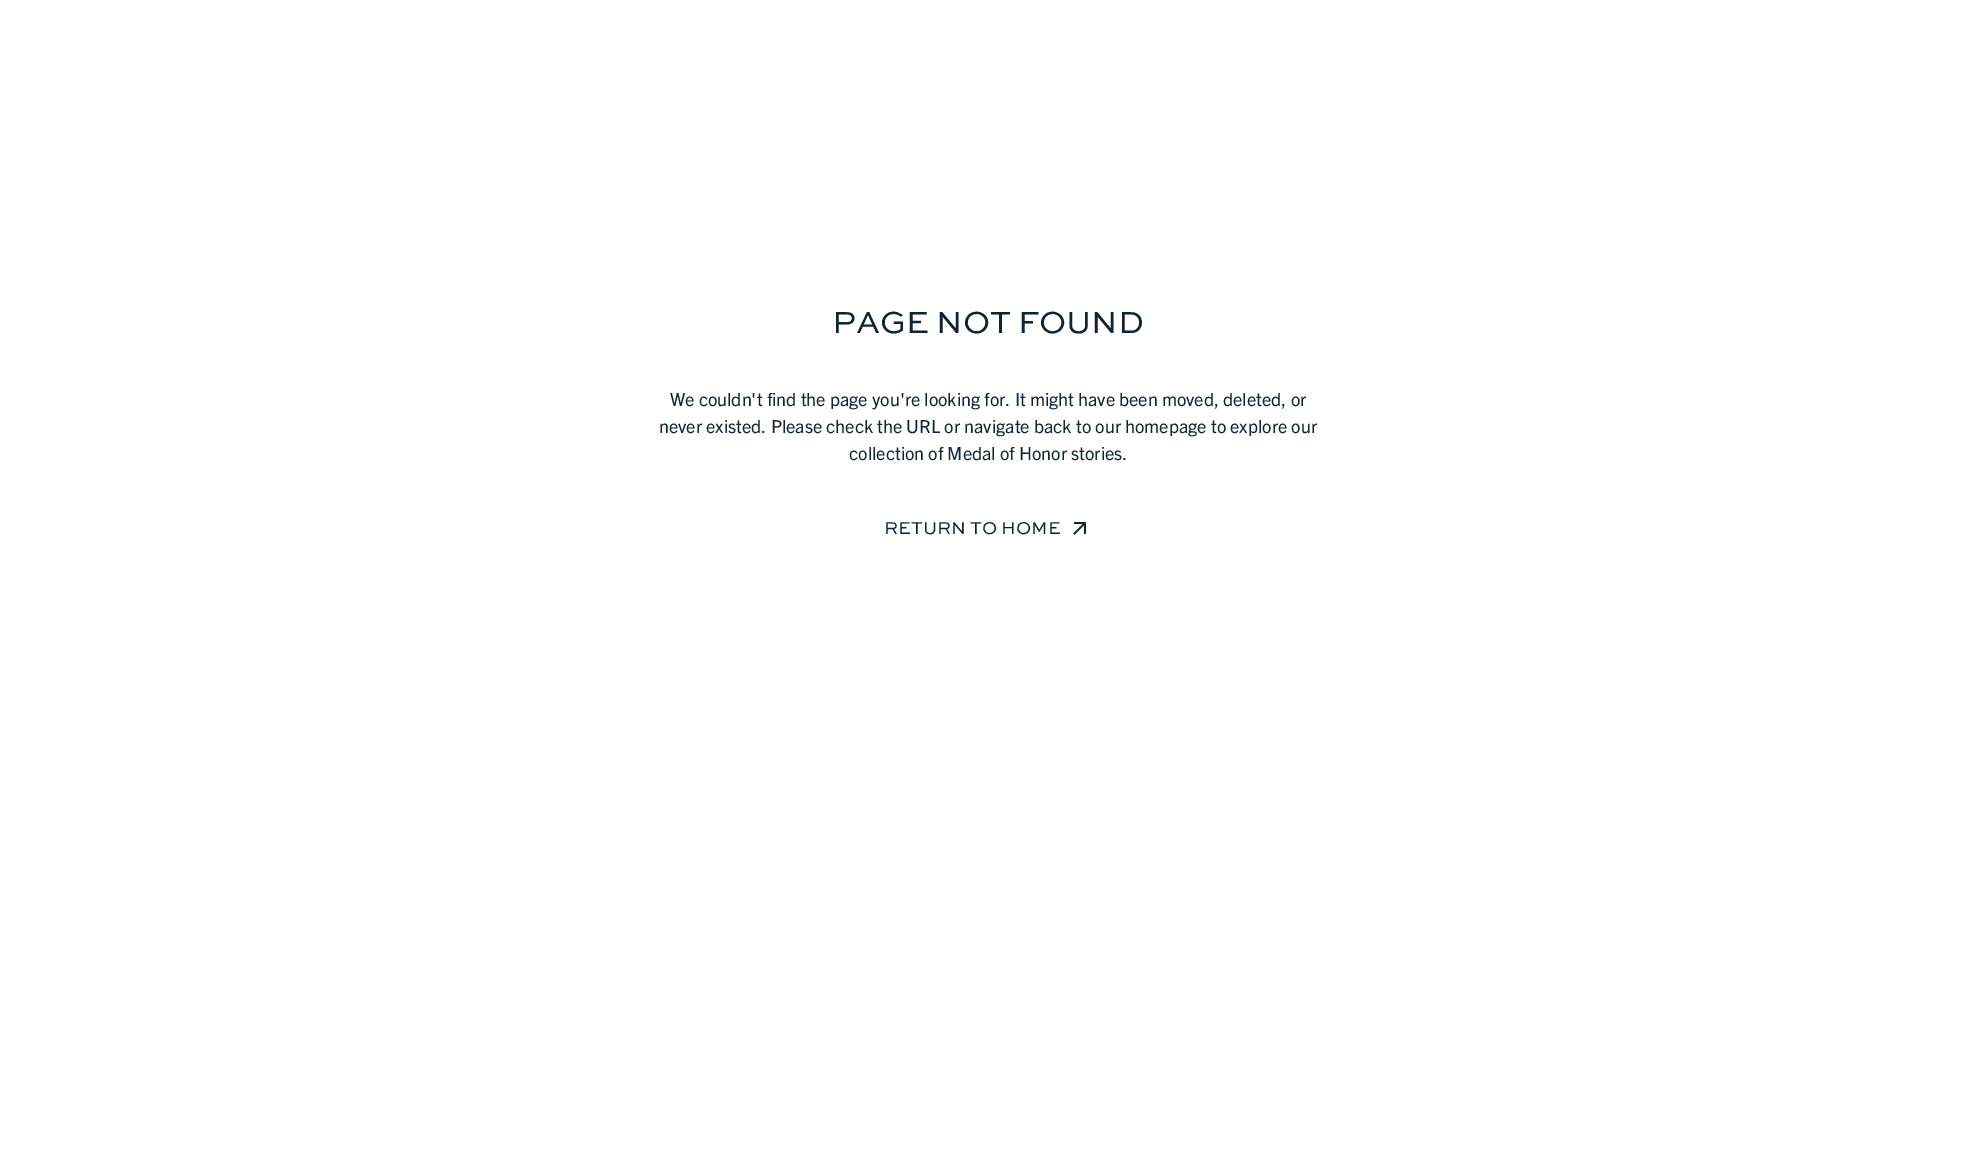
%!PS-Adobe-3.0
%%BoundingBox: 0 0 1976 1157
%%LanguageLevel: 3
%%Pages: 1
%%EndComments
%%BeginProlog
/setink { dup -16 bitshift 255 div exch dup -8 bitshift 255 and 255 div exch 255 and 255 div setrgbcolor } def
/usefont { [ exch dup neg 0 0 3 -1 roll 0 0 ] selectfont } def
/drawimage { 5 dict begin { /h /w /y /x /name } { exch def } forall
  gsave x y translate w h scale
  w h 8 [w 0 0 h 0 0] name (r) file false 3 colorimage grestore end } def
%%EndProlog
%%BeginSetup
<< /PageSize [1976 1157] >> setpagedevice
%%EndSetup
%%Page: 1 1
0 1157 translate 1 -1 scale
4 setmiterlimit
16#FFFFFF setink
0 0 1976 1157 rectfill
/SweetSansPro-Regular 32 usefont
16#0E2435 setink
832 333 moveto (PAGE NOT FOUND) show
/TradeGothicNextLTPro-Regular 18 usefont
[
    [(We couldn't find the page you're looking for. It might have been moved, deleted, or) 670 406]
    [(never existed. Please check the URL or navigate back to our homepage to explore our) 659 433]
    [(collection of Medal of Honor stories.) 849 460]
] { aload pop moveto show } forall
/SweetSansPro-Regular 18 usefont
884 534 moveto (RETURN TO HOME) show
(img1.raw) 1073 522 13 13 drawimage
showpage
%%EOF
